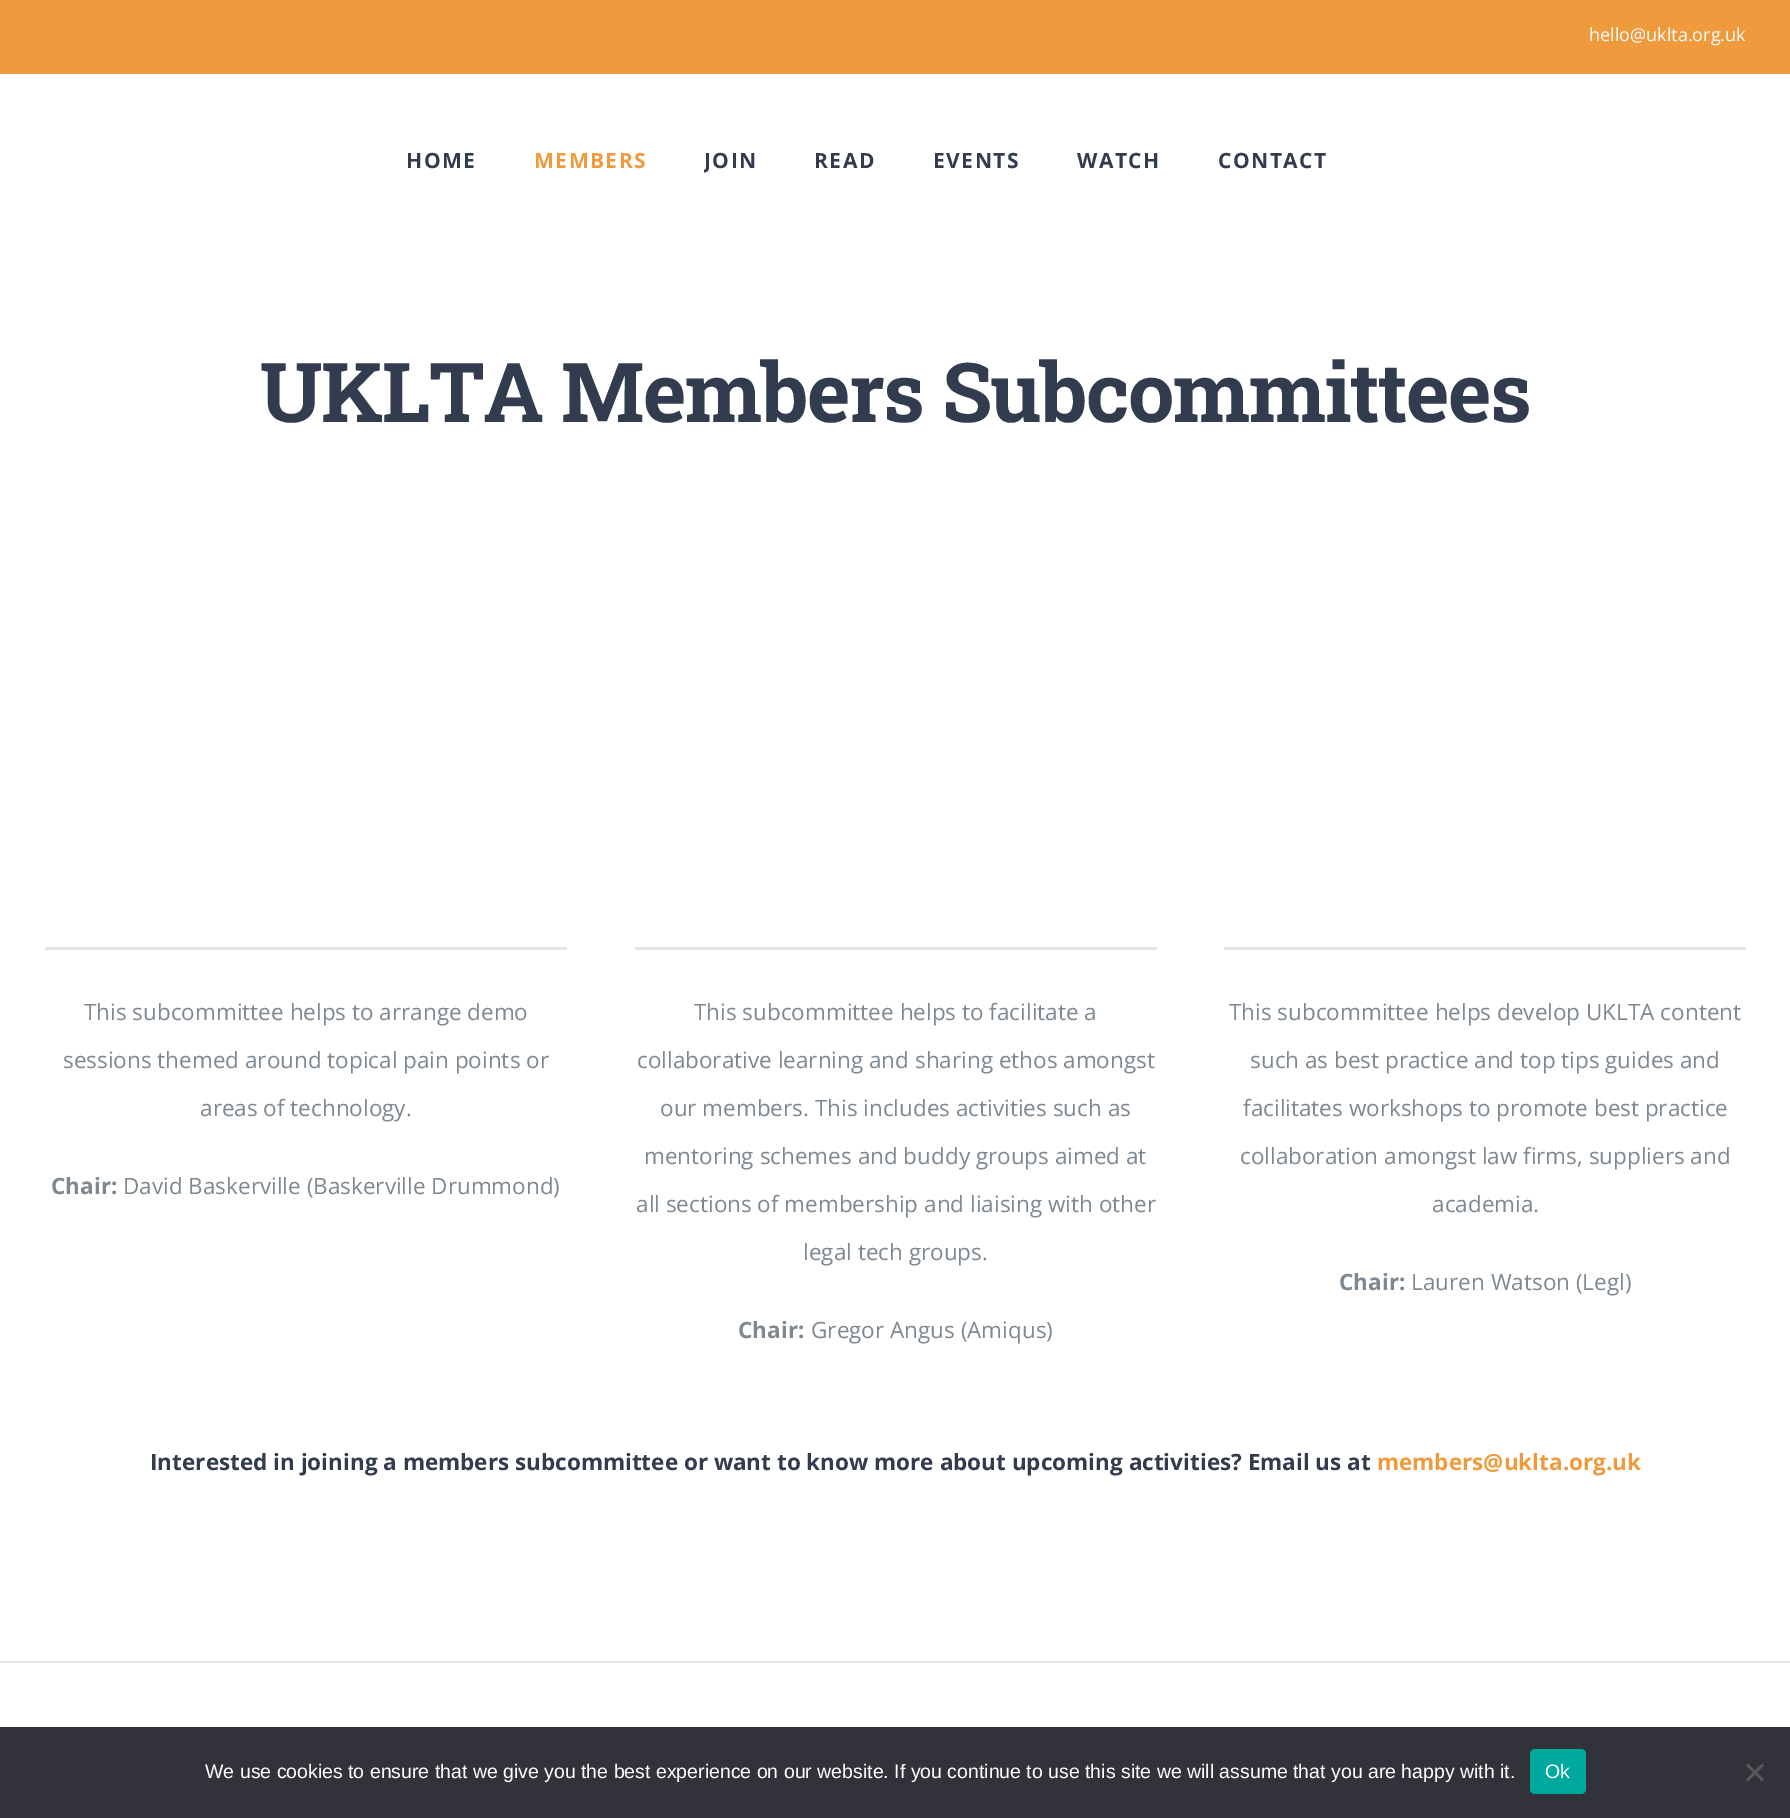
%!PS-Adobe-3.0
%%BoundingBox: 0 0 1790 1818
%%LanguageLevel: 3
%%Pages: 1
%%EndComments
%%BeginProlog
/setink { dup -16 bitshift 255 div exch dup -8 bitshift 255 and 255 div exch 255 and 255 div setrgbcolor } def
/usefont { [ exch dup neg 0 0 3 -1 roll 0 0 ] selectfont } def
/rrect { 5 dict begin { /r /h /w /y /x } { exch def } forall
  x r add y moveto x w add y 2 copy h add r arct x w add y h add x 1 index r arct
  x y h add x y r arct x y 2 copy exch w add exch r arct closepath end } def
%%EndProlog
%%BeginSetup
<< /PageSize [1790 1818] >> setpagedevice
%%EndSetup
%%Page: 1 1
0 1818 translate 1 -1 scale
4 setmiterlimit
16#FFFFFF setink
0 0 1790 1818 rectfill
16#F09A3E setink
0 0 1790 74 rectfill
/OpenSans-Regular 18 usefont
16#FFFFFF setink
1589 41 moveto (hello@uklta.org.uk) show
/OpenSans-Bold 21 usefont
16#333C4E setink
406 168 moveto 1.5 0 (HOME) ashow
16#EF9A3D setink
534 168 moveto 1.5 0 (MEMBERS) ashow
gsave
704 131 111 60 rectclip
16#333C4E setink
704 168 moveto 1.5 0 (JOIN) ashow
grestore
16#333C4E setink
814 168 moveto 1.5 0 (READ) ashow
933 168 moveto 1.5 0 (EVENTS) ashow
1077 168 moveto 1.5 0 (WATCH) ashow
1218 168 moveto 1.5 0 (CONTACT) ashow
/RobotoSlab-Bold 82.5 usefont
260 422 moveto -1.5 0 (UKLTA Members Subcommittees) ashow
16#E7E4E2 setink
45 947 522 3 rectfill
/OpenSans-Regular 22.5 usefont
16#7E8890 setink
[
    [(This subcommittee helps to arrange demo) 84 1020]
    [(sessions themed around topical pain points or) 63 1068]
    [(areas of technology.) 200 1116]
] { aload pop moveto show } forall
/OpenSans-Bold 22.5 usefont
51 1194 moveto (Chair:) show
/OpenSans-Regular 22.5 usefont
123 1194 moveto (David Baskerville \(Baskerville Drummond\)) show
16#E7E4E2 setink
635 947 522 3 rectfill
16#7E8890 setink
[
    [(This subcommittee helps to facilitate a) 694 1020]
    [(collaborative learning and sharing ethos amongst) 637 1068]
    [(our members. This includes activities such as) 660 1116]
    [(mentoring schemes and buddy groups aimed at) 644 1164]
    [(all sections of membership and liaising with other) 636 1212]
    [(legal tech groups.) 803 1260]
] { aload pop moveto show } forall
/OpenSans-Bold 22.5 usefont
738 1338 moveto (Chair:) show
/OpenSans-Regular 22.5 usefont
811 1338 moveto (Gregor Angus \(Amiqus\)) show
16#E7E4E2 setink
1224 947 522 3 rectfill
16#7E8890 setink
[
    [(This subcommittee helps develop UKLTA content) 1229 1020]
    [(such as best practice and top tips guides and) 1250 1068]
    [(facilitates workshops to promote best practice) 1243 1116]
    [(collaboration amongst law firms, suppliers and) 1240 1164]
    [(academia.) 1432 1212]
] { aload pop moveto show } forall
/OpenSans-Bold 22.5 usefont
1339 1290 moveto (Chair:) show
/OpenSans-Regular 22.5 usefont
1411 1290 moveto (Lauren Watson \(Legl\)) show
/OpenSans-Bold 22.5 usefont
16#333C4E setink
150 1470 moveto (Interested in joining a members subcommittee or want to know more about upcoming activities? Email us at) show
16#EF9A3D setink
1377 1470 moveto (members@uklta.org.uk) show
16#E7E4E2 setink
0 1661 1790 2 rectfill
16#32323A setink
0 1727 1790 91 rectfill
/LiberationSans-Regular 19.5 usefont
16#FFFFFF setink
205 1778 moveto (We use cookies to ensure that we give you the best experience on our website. If you continue to use this site we will assume that you are happy with it.) show
16#00A99D setink
1530 1749 56 45 5 rrect fill
16#FFFFFF setink
1545 1778 moveto (Ok) show
16#59595D setink
1762 1763.5 moveto 1764 1765.5 lineto 1748 1781.5 lineto 1746 1779.5 lineto closepath fill
1746 1765.5 moveto 1748 1763.5 lineto 1764 1779.5 lineto 1762 1781.5 lineto closepath fill
showpage
%%EOF
